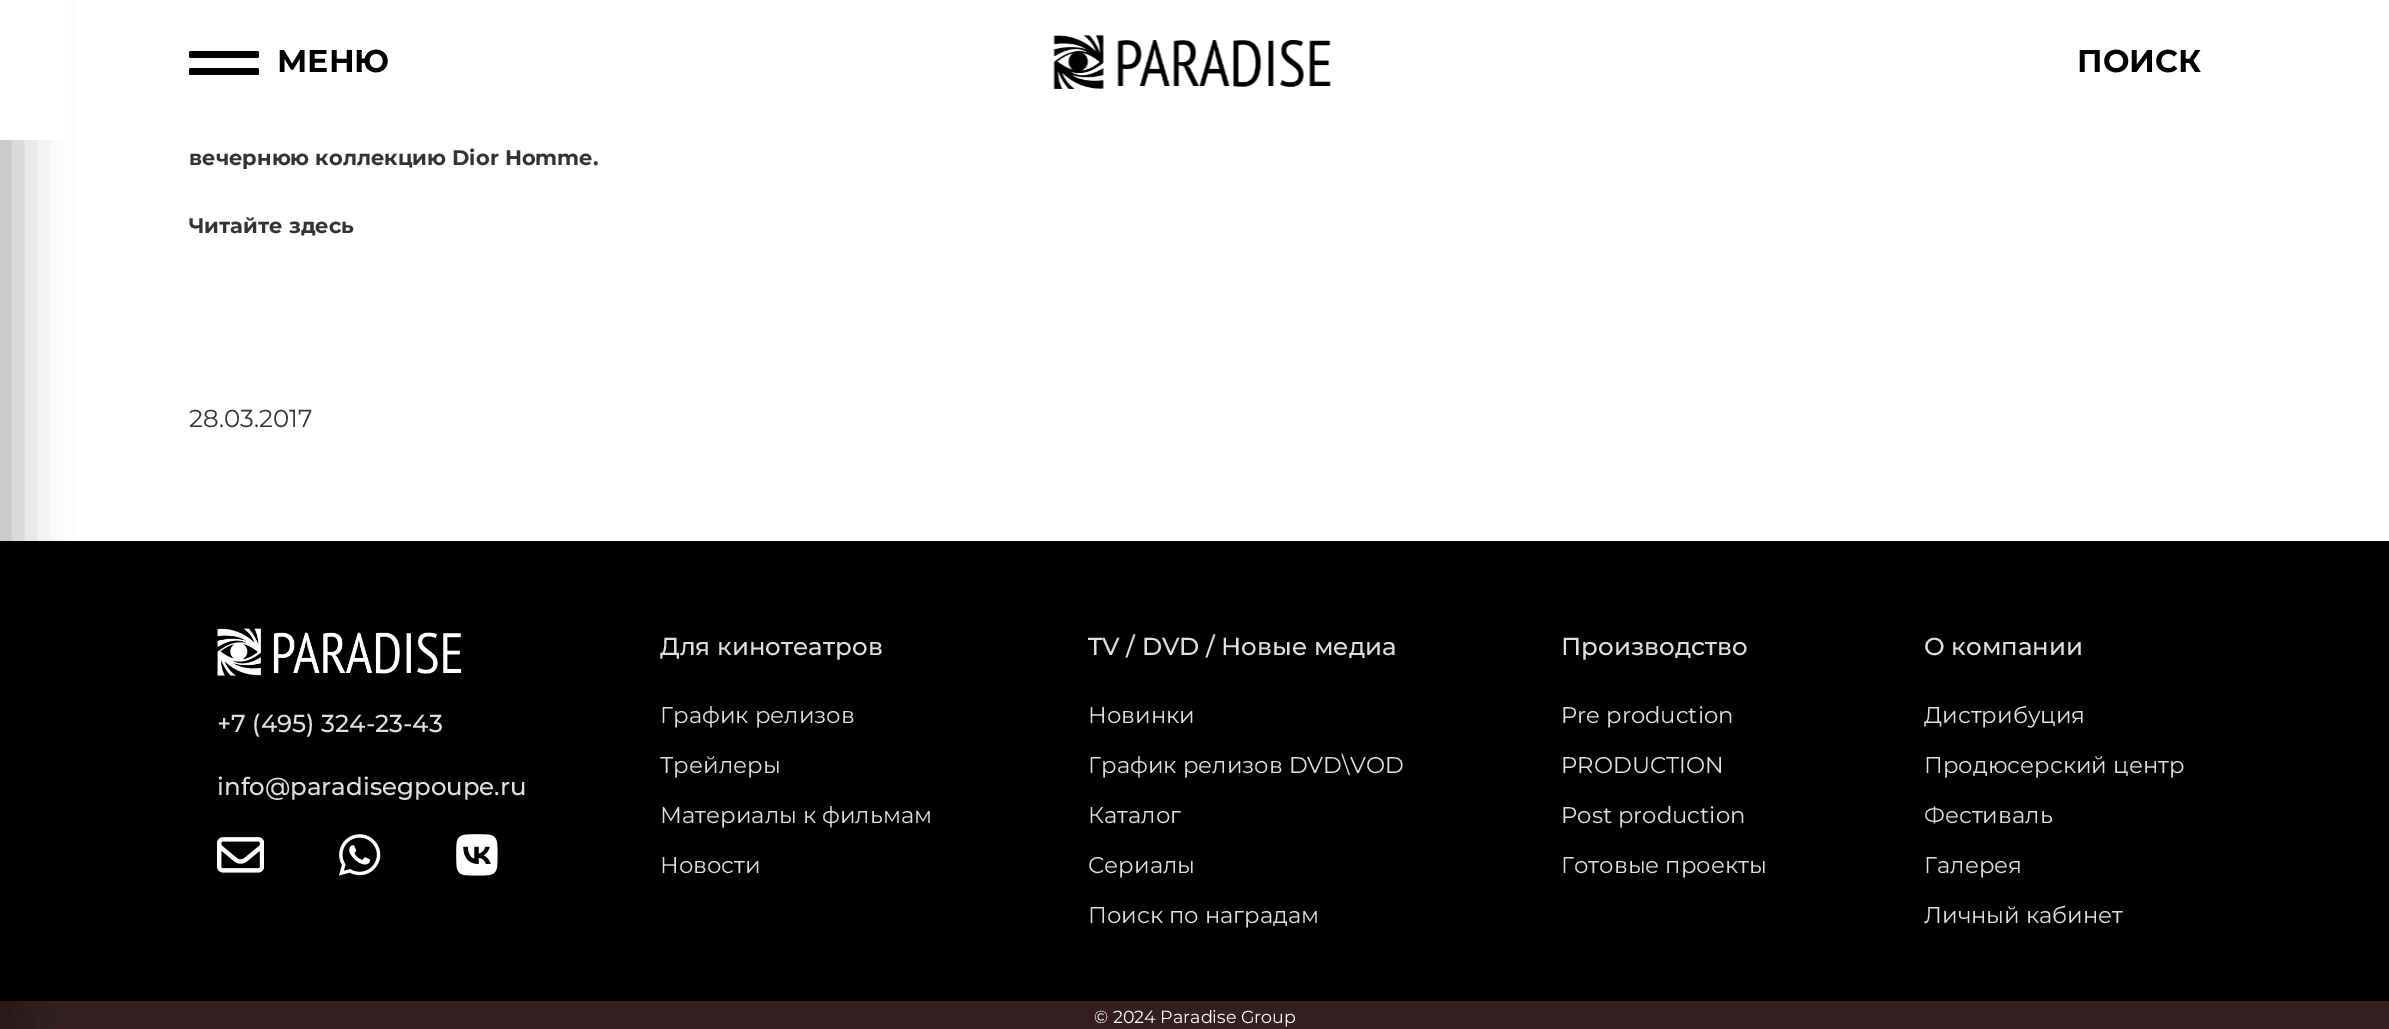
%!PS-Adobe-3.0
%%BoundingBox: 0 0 2389 1029
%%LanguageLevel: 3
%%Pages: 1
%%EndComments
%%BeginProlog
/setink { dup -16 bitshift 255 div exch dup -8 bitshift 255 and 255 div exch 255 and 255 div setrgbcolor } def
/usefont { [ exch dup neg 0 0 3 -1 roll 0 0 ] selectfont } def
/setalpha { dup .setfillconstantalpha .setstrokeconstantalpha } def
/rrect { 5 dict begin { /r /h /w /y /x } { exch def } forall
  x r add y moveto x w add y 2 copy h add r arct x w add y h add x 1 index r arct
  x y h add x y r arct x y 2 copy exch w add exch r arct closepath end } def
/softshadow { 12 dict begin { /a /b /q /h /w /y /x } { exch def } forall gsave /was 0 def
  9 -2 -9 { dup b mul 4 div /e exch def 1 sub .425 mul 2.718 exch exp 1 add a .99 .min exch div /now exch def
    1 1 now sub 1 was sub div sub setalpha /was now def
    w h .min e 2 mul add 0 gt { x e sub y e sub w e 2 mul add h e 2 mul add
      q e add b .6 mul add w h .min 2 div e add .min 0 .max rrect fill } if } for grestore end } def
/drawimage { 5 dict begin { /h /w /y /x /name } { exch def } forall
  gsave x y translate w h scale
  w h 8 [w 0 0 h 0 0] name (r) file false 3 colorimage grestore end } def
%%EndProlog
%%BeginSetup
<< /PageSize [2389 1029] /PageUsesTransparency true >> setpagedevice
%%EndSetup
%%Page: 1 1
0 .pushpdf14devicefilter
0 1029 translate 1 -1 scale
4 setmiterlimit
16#FFFFFF setink
0 0 2389 1029 rectfill
16#000000 setink
0 541 2389 460 rectfill
16#331F1F setink
0 1001 2389 28 rectfill
16#000000 setink
-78 0 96 1029 0 26 0.28 softshadow
16#FFFFFF setink
0 0 65 140 rectfill
16#000000 setink
189 51 70 7 2 rrect fill
189 68 70 7 2 rrect fill
/Montserrat-Bold 31.5 usefont
277 72 moveto (МЕНЮ) show
(img1.raw) 1053 35 278 54 drawimage
2077 72 moveto (ПОИСК) show
/Montserrat-Bold 21 usefont
16#333333 setink
189 165 moveto (вечернюю коллекцию Dior Homme.) show
189 233 moveto (Читайте здесь) show
/Montserrat-Regular 24.5 usefont
189 427 moveto (28.03.2017) show
(img2.raw) 217 628 245 48 drawimage
/Montserrat-Medium 24.5 usefont
16#DFDFDF setink
217 732 moveto (+7 \(495\) 324-23-43) show
217 795 moveto (info@paradisegpoupe.ru) show
(img3.raw) 217 837 47 36 drawimage
(img4.raw) 339 834 42 42 drawimage
(img5.raw) 456 834 42 42 drawimage
660 655 moveto (Для кинотеатров) show
/Montserrat-Regular 22.75 usefont
[
    [(График релизов) 660 723]
    [(Трейлеры) 660 773]
    [(Материалы к фильмам) 660 823]
    [(Новости) 660 873]
] { aload pop moveto show } forall
/Montserrat-Medium 24.5 usefont
1088 655 moveto (TV / DVD / Новые медиа) show
/Montserrat-Regular 22.75 usefont
[
    [(Новинки) 1088 723]
    [(График релизов DVD\\VOD) 1088 773]
    [(Каталог) 1088 823]
    [(Сериалы) 1088 873]
    [(Поиск по наградам) 1088 923]
] { aload pop moveto show } forall
/Montserrat-Medium 24.5 usefont
1561 655 moveto (Производство) show
/Montserrat-Regular 22.75 usefont
[
    [(Pre production) 1561 723]
    [(PRODUCTION) 1561 773]
    [(Post production) 1561 823]
    [(Готовые проекты) 1561 873]
] { aload pop moveto show } forall
/Montserrat-Medium 24.5 usefont
1924 655 moveto (О компании) show
/Montserrat-Regular 22.75 usefont
[
    [(Дистрибуция) 1924 723]
    [(Продюсерский центр) 1924 773]
    [(Фестиваль) 1924 823]
    [(Галерея) 1924 873]
    [(Личный кабинет) 1924 923]
] { aload pop moveto show } forall
/Montserrat-Regular 17.5 usefont
16#FFFFFF setink
1094 1023 moveto (© 2024 Paradise Group) show
.poppdf14devicefilter showpage
%%EOF
